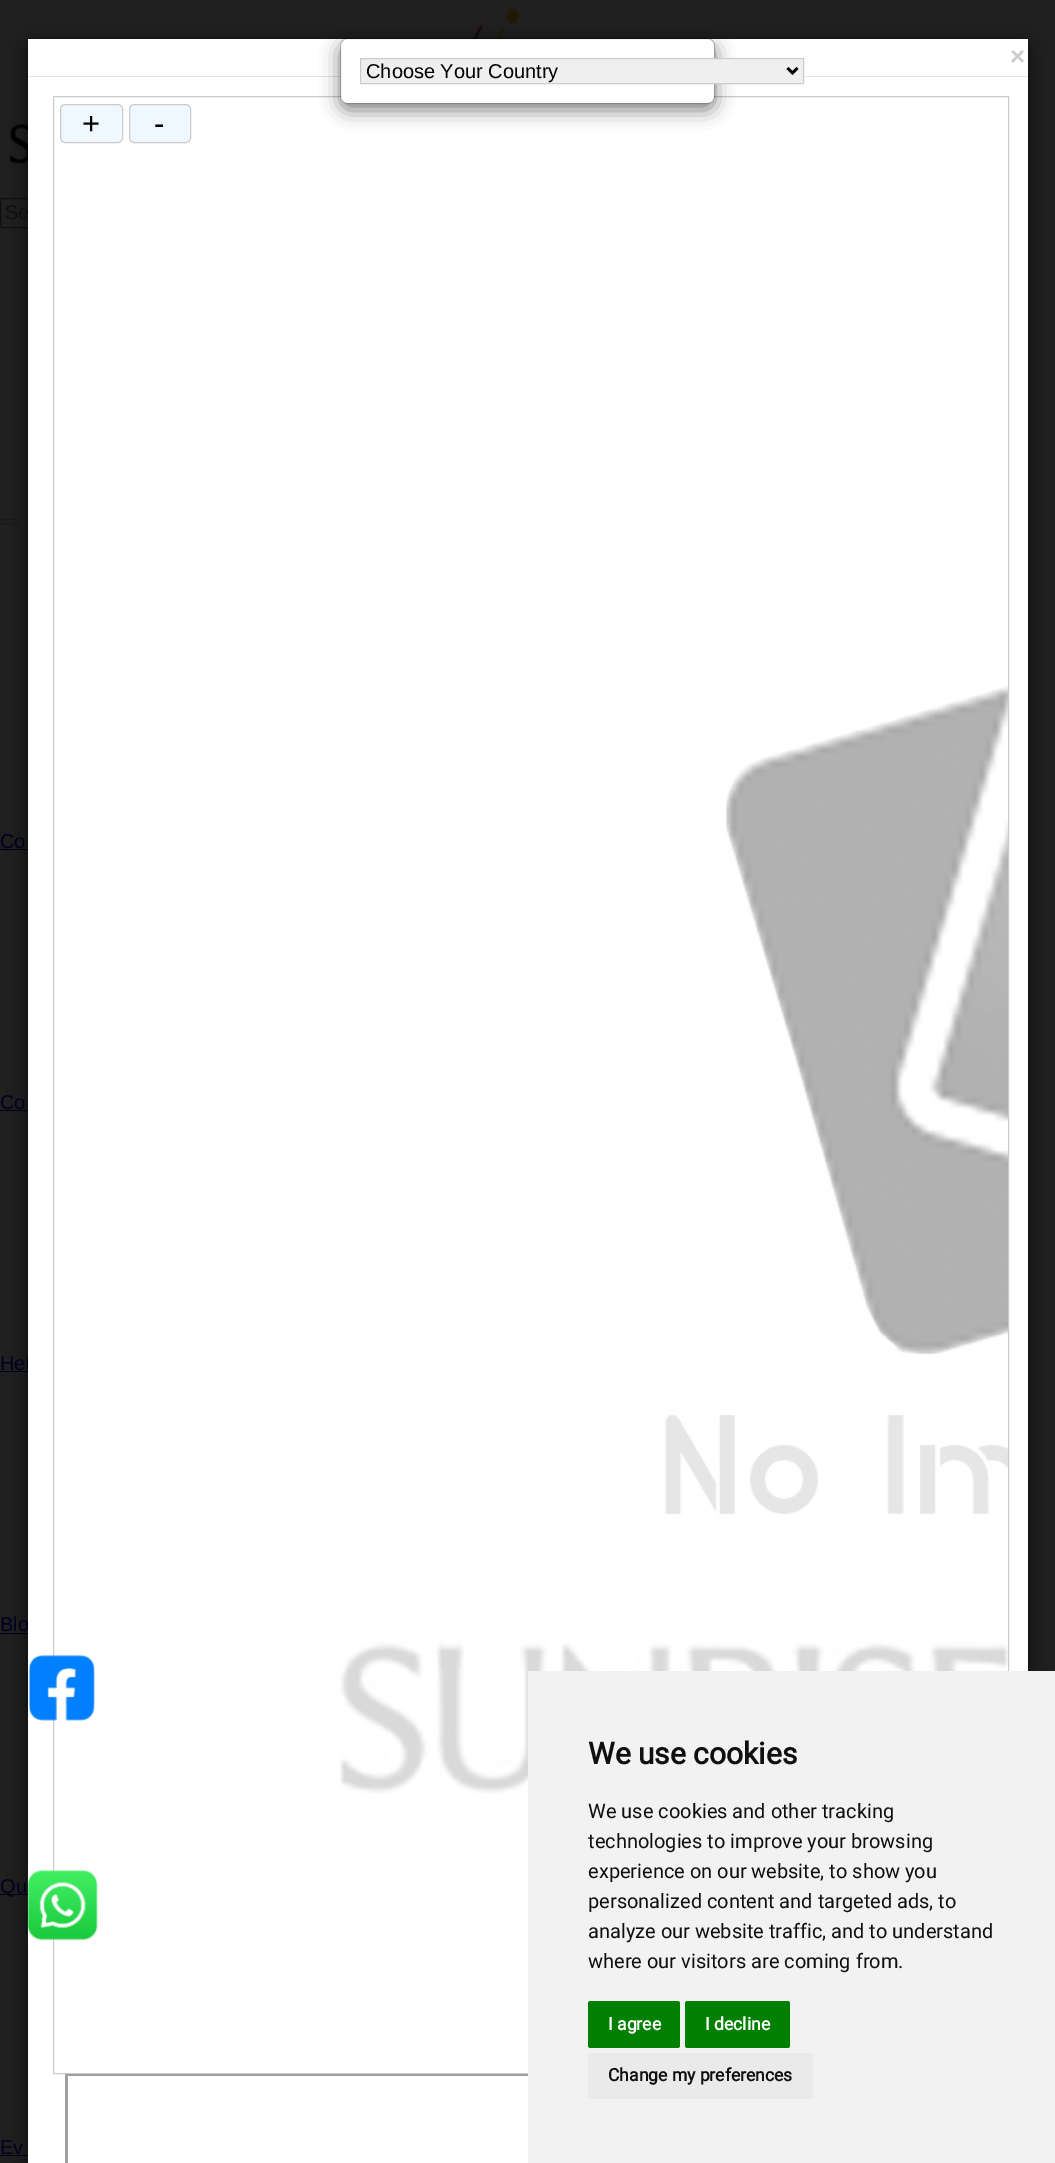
%!PS-Adobe-3.0
%%BoundingBox: 0 0 1055 2163
%%LanguageLevel: 3
%%Pages: 1
%%EndComments
%%BeginProlog
/setink { dup -16 bitshift 255 div exch dup -8 bitshift 255 and 255 div exch 255 and 255 div setrgbcolor } def
/usefont { [ exch dup neg 0 0 3 -1 roll 0 0 ] selectfont } def
/setalpha { dup .setfillconstantalpha .setstrokeconstantalpha } def
/rrect { 5 dict begin { /r /h /w /y /x } { exch def } forall
  x r add y moveto x w add y 2 copy h add r arct x w add y h add x 1 index r arct
  x y h add x y r arct x y 2 copy exch w add exch r arct closepath end } def
/softshadow { 12 dict begin { /a /b /q /h /w /y /x } { exch def } forall gsave /was 0 def
  9 -2 -9 { dup b mul 4 div /e exch def 1 sub .425 mul 2.718 exch exp 1 add a .99 .min exch div /now exch def
    1 1 now sub 1 was sub div sub setalpha /was now def
    w h .min e 2 mul add 0 gt { x e sub y e sub w e 2 mul add h e 2 mul add
      q e add b .6 mul add w h .min 2 div e add .min 0 .max rrect fill } if } for grestore end } def
/drawimage { 5 dict begin { /h /w /y /x /name } { exch def } forall
  gsave x y translate w h scale
  w h 8 [w 0 0 h 0 0] name (r) file false 3 colorimage grestore end } def
%%EndProlog
%%BeginSetup
<< /PageSize [1055 2163] /PageUsesTransparency true >> setpagedevice
%%EndSetup
%%Page: 1 1
0 .pushpdf14devicefilter
0 2163 translate 1 -1 scale
4 setmiterlimit
16#202020 setink
0 0 1055 2163 rectfill
(img2.raw) 8 0 514 185 drawimage
16#0F0F0F setink
0.5 198.5 268 29 2 rrect stroke
16#1A1A1A setink
0.5 519.5 17 4 rectstroke
[
    [0 849 28 1 16#00001E]
    [0 1110 28 1 16#00001E]
    [0 1371 28 1 16#00001E]
    [0 1633 28 1 16#00001E]
    [0 1894 28 1 16#00001E]
    [0 2155 28 1 16#00001E]
] { aload pop setink rectfill } forall
16#000000 setink
26 44 1003 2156 8 9.5 0.5 softshadow
/LiberationSans-Regular 20 usefont
16#0F0F0F setink
5 219 moveto (Se) show
16#00001E setink
0 1370 moveto (Hel) show
0 1631 moveto (Blo) show
16#FFFFFF setink
28 78 1000 2085 rectfill
0.2 setalpha
16#000000 setink
26.5 38.5 1002 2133 7.5 rrect stroke
1 setalpha
16#FFFFFF setink
28 39 1000 39 rectfill
16#E5E5E5 setink
28 76 1000 1 rectfill
/LiberationSans-Bold 26 usefont
16#CCCCCC setink
1010 65 moveto (×) show
53.5 96.5 955 1977 rectstroke
16#F0F8FF setink
60.5 104.5 62 38 4.5 rrect gsave fill grestore
16#CCCCCC setink
stroke
/LiberationSans-Regular 31 usefont
16#000000 setink
82 134 moveto (+) show
16#F0F8FF setink
129.5 104.5 61 38 4.5 rrect gsave fill grestore
16#CCCCCC setink
stroke
16#000000 setink
154 134 moveto (-) show
(img1.raw) 340 686 668 1108 drawimage
16#9F9F9F setink
65 2074 moveto 1014 2074 lineto 1011 2076 lineto 68 2076 lineto closepath fill
65 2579 moveto 65 2074 lineto 68 2076 lineto 68 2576 lineto closepath fill
16#000000 setink
340 44 375 66 8 9.5 0.5 softshadow
16#FFFFFF setink
341 39 373 64 6 rrect fill
0.2 setalpha
16#000000 setink
340.5 38.5 374 65 7.5 rrect stroke
1 setalpha
16#EFEFEF setink
360.5 58.5 moveto 803.5 58.5 lineto 803.5 83.5 lineto 360.5 83.5 lineto closepath gsave fill grestore
16#CCCCCC setink
stroke
16#000000 setink
2.5 setlinewidth
787.5 68 moveto 792.5 73 lineto 797.5 68 lineto stroke
/LiberationSans-Regular 20 usefont
366 78 moveto (Choose Your Country) show
16#00001E setink
[
    [(Co) 0 848]
    [(Co) 0 1109]
    [(Qu) 0 1893]
    [(Ev) 0 2154]
] { aload pop moveto show } forall
(img3.raw) 28 1654 67 67 drawimage
(img4.raw) 27 1870 71 71 drawimage
16#F2F2F2 setink
528 1671 527 492 rectfill
/Roboto-Bold 30 usefont
16#0F0F0F setink
588 1764 moveto (We use cookies) show
/Roboto-Regular 20 usefont
[
    [(We use cookies and other tracking) 588 1818]
    [(technologies to improve your browsing) 588 1848]
    [(experience on our website, to show you) 588 1878]
    [(personalized content and targeted ads, to) 588 1908]
    [(analyze our website traffic, and to understand) 588 1938]
    [(where our visitors are coming from.) 588 1968]
] { aload pop moveto show } forall
16#008000 setink
588 2001 92 47 2.5 rrect fill
/Roboto-Bold 17.5 usefont
16#FFFFFF setink
608 2030 moveto (I agree) show
16#008000 setink
685 2001 105 47 2.5 rrect fill
16#FFFFFF setink
705 2030 moveto (I decline) show
16#EAEAEA setink
588 2053 225 46 2.5 rrect fill
16#0F0F0F setink
608 2081 moveto (Change my preferences) show
.poppdf14devicefilter showpage
%%EOF
